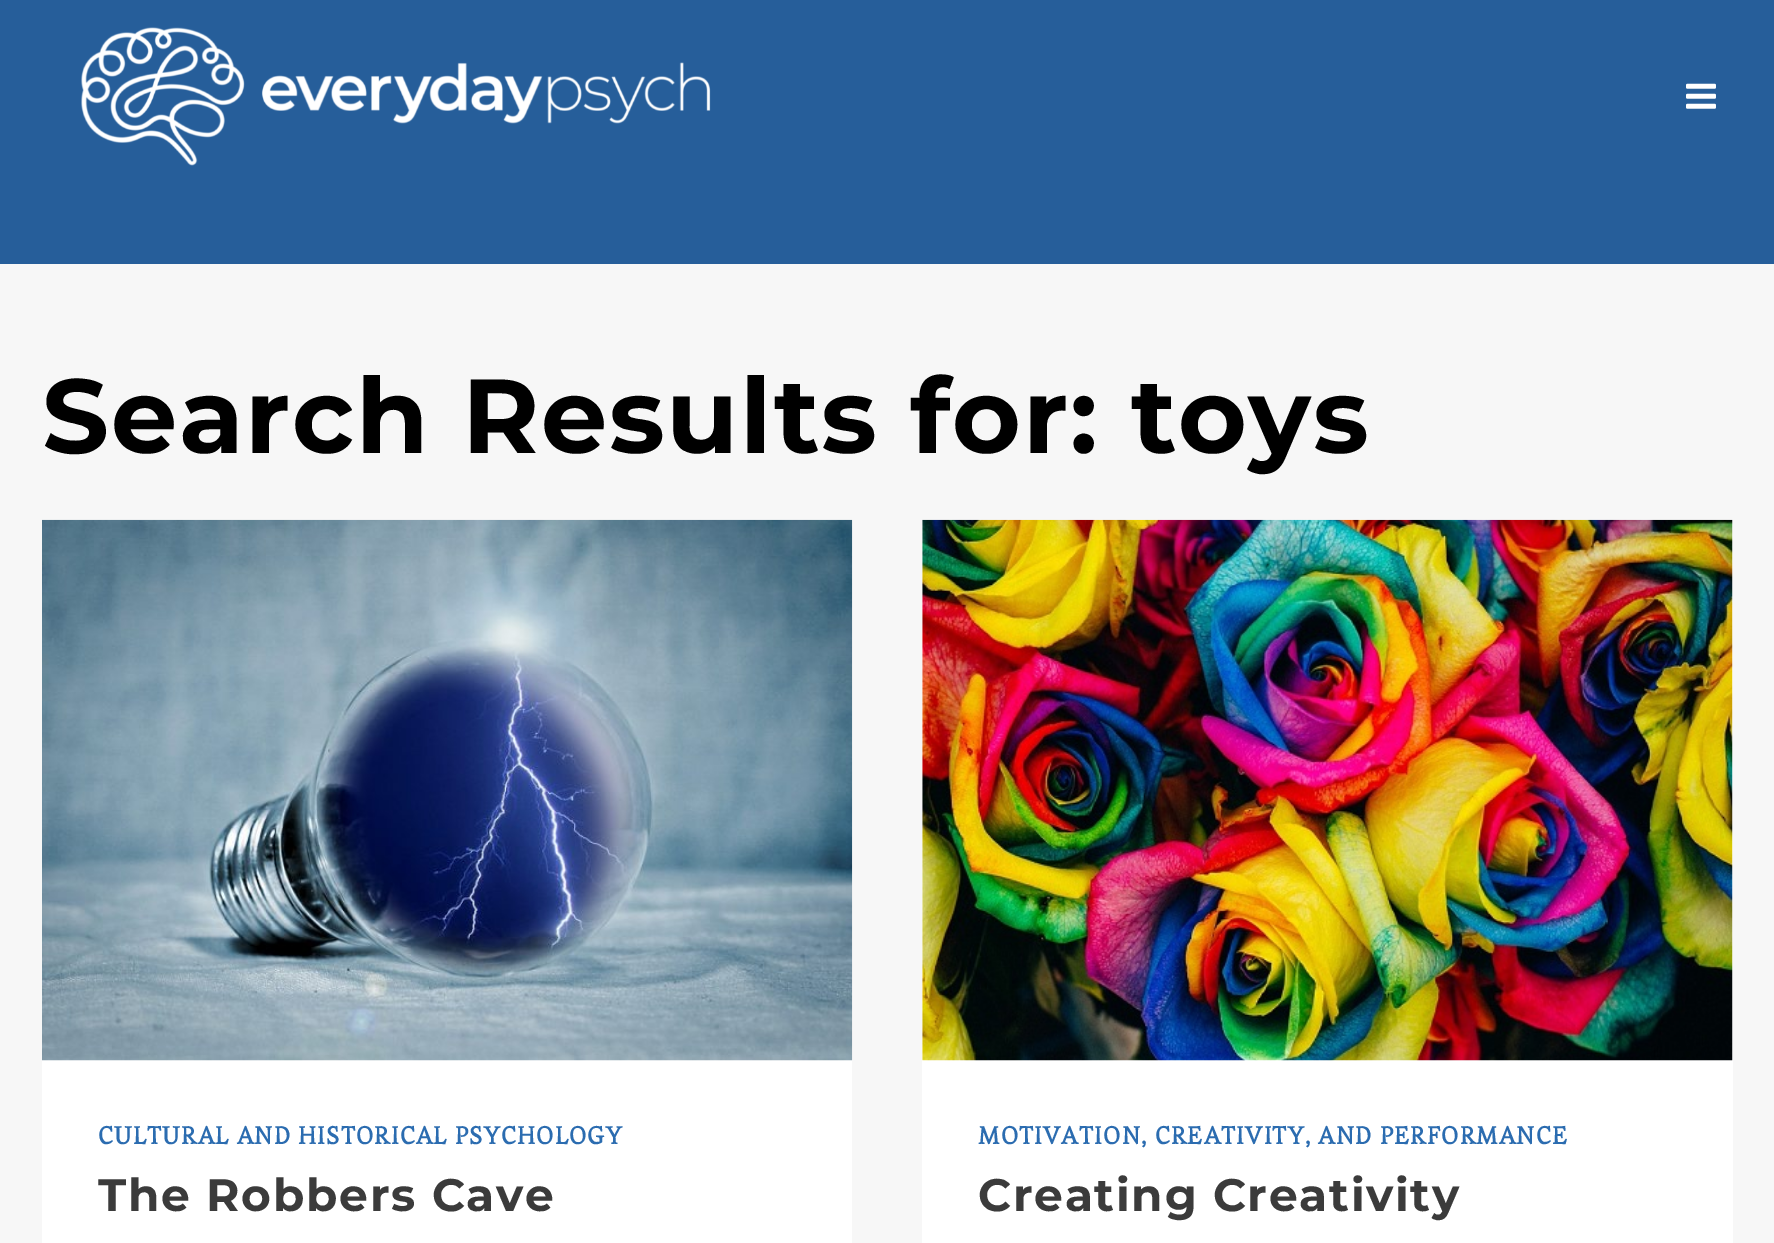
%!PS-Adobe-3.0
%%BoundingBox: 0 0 1774 1243
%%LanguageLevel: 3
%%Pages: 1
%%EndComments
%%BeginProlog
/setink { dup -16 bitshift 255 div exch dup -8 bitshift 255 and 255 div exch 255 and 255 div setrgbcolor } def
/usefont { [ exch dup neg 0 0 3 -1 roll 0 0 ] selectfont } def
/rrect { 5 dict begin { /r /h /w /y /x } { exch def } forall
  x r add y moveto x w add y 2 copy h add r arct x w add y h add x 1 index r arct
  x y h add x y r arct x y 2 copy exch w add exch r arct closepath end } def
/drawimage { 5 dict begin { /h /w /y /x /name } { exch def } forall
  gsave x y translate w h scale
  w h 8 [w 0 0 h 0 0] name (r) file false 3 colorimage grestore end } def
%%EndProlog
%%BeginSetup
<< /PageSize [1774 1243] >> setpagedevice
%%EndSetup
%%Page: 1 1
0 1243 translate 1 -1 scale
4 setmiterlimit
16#F7F7F7 setink
0 0 1774 1243 rectfill
16#265E9A setink
0 0 1774 264 rectfill
(img1.raw) 81 27 630 139 drawimage
(img2.raw) 1686 83 30 26 drawimage
/Montserrat-Bold 105 usefont
16#000000 setink
42 453 moveto 1.75 0 (Search Results for: toys) ashow
16#FFFFFF setink
42 1060 810 183 rectfill
(img3.raw) 42 519 811 542 drawimage
/Esteban-Bold 24.5 usefont
16#2B6CB0 setink
98 1144 moveto 1.2 0 (CULTURAL AND HISTORICAL PSYCHOLOGY) ashow
/Montserrat-Bold 45.5 usefont
16#3B3B3B setink
98 1211 moveto 1.75 0 (The Robbers Cave) ashow
16#FFFFFF setink
922 520 811 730 7 rrect fill
(img4.raw) 922 519 811 542 drawimage
/Esteban-Bold 24.5 usefont
16#2B6CB0 setink
978 1144 moveto 1.2 0 (MOTIVATION, CREATIVITY, AND PERFORMANCE) ashow
/Montserrat-Bold 45.5 usefont
16#3B3B3B setink
978 1211 moveto 1.75 0 (Creating Creativity) ashow
showpage
%%EOF
